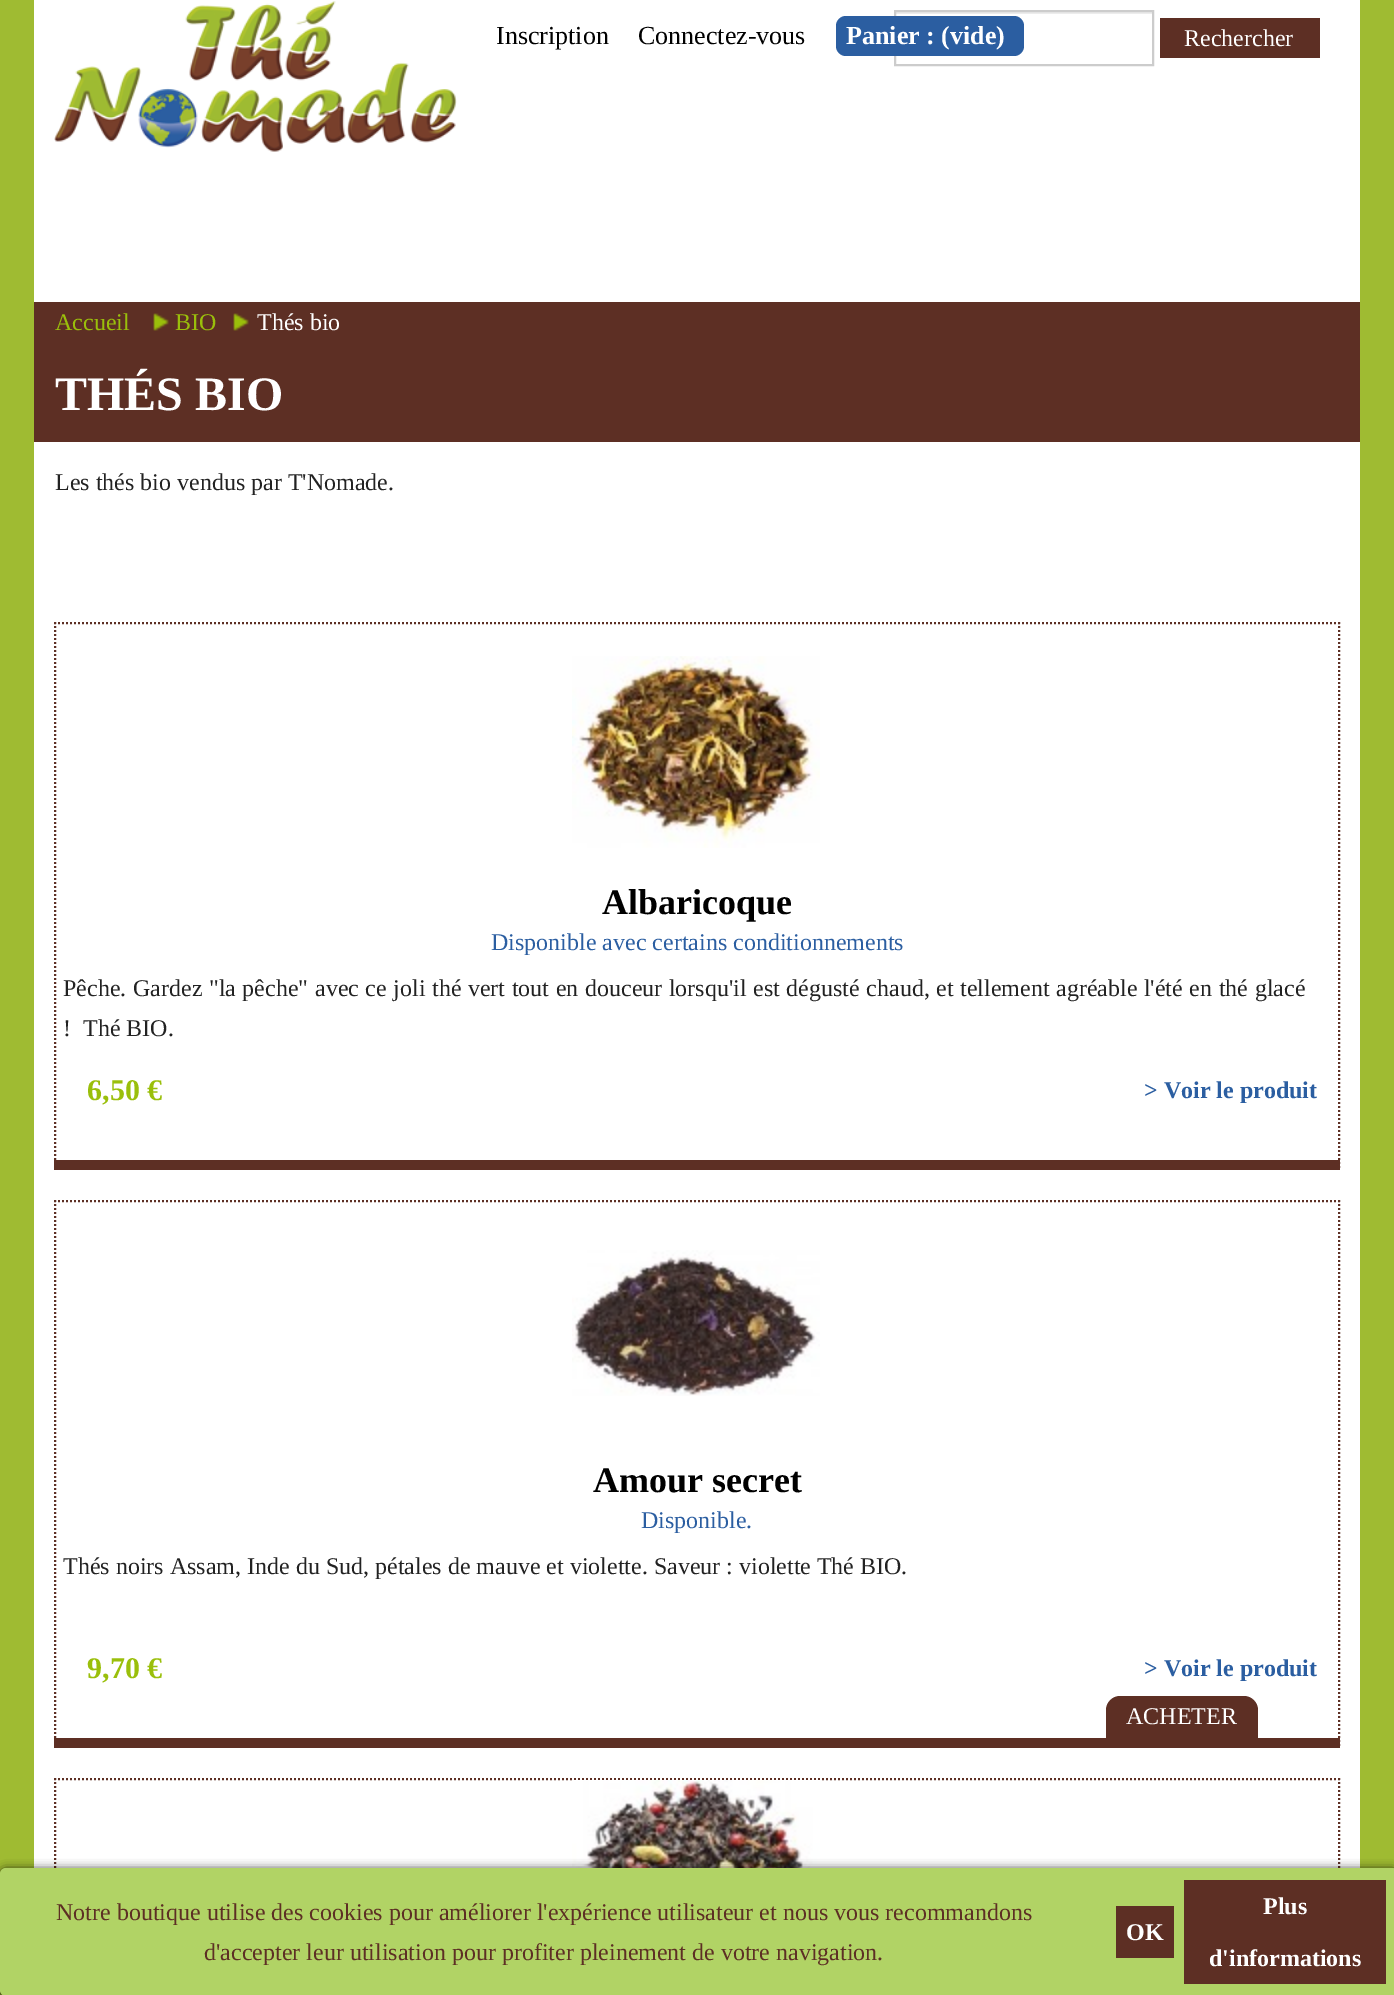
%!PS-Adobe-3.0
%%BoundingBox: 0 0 1394 1995
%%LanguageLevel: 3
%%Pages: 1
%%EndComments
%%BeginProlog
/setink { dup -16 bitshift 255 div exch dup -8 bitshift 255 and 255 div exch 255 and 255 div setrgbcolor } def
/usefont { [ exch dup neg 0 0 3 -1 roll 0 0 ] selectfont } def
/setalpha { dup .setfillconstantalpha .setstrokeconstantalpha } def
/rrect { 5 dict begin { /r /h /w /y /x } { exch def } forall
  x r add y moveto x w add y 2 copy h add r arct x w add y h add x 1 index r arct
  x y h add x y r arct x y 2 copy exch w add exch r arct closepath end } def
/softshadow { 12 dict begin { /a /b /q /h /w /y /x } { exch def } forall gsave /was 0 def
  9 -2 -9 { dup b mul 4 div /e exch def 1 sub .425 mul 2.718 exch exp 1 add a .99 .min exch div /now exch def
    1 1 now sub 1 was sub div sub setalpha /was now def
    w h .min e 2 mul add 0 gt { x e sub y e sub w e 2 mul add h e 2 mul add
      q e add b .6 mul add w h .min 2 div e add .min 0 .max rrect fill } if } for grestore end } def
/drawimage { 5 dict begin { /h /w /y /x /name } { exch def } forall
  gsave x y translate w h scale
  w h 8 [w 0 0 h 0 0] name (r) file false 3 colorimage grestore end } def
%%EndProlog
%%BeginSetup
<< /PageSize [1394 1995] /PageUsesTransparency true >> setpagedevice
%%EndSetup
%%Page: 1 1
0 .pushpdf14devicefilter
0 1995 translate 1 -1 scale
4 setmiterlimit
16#9FBB32 setink
0 0 1394 1995 rectfill
16#FFFFFF setink
34 0 1326 302 rectfill
(img1.raw) 54 1 403 151 drawimage
/LiberationSerif-Regular 26 usefont
16#000000 setink
496 44 moveto (Inscription) show
638 44 moveto (Connectez-vous) show
16#ECECEC setink
896 12 256 2 rectfill
16#CCCCCC setink
2 setlinewidth
895 11 258 54 rectstroke
16#2B5EA1 setink
836 16 188 40 10 rrect fill
/LiberationSerif-Bold 26 usefont
16#FFFFFF setink
846 44 moveto (Panier : \(vide\)) show
16#5D2F24 setink
1160 18 160 40 rectfill
/LiberationSerif-Regular 24 usefont
16#FFFFFF setink
1184 46 moveto (Rechercher) show
34 442 1326 1426 rectfill
16#5D2F24 setink
[2 2] 0 setdash
54 1779 moveto 1340 1779 lineto stroke
1339 1778 moveto 1339 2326 lineto stroke
55 1778 moveto 55 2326 lineto stroke
(img5.raw) 572 1780 248 88 drawimage
16#000000 setink
0 1870 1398 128 6 5 1 softshadow
16#B1D365 setink
1 1869 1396 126 5 rrect gsave fill grestore
[] 0 setdash
stroke
16#5D2F24 setink
56 1920 moveto (Notre boutique utilise des cookies pour améliorer l'expérience utilisateur et nous vous recommandons) show
204 1960 moveto (d'accepter leur utilisation pour profiter pleinement de votre navigation.) show
1116 1906 58 52 rectfill
/LiberationSerif-Bold 24 usefont
16#FFFFFF setink
1126 1940 moveto (OK) show
16#5D2F24 setink
1184 1880 202 104 rectfill
16#FFFFFF setink
1263 1914 moveto (Plus) show
1209 1966 moveto (d'informations) show
16#5D2F24 setink
34 302 1326 140 rectfill
/LiberationSerif-Regular 24 usefont
16#9ABF0B setink
55 330 moveto (Accueil) show
(img2.raw) 153 313 16 18 drawimage
175 330 moveto (BIO) show
(img2.raw) 233 313 16 18 drawimage
16#FFFFFF setink
257 330 moveto (Thés bio) show
/LiberationSerif-Bold 48 usefont
55 410 moveto (THÉS BIO) show
/LiberationSerif-Regular 24 usefont
16#222222 setink
55 490 moveto (Les thés bio vendus par T'Nomade.) show
16#5D2F24 setink
[2 2] 0 setdash
54 623 moveto 1340 623 lineto stroke
1339 622 moveto 1339 1170 lineto stroke
54 1160 1286 10 rectfill
55 622 moveto 55 1170 lineto stroke
(img3.raw) 572 656 248 192 drawimage
/LiberationSerif-Bold 36 usefont
16#000000 setink
602 914 moveto (Albaricoque) show
/LiberationSerif-Regular 24 usefont
16#2B5EA1 setink
491 950 moveto (Disponible avec certains conditionnements) show
16#222222 setink
63 996 moveto 0.6 0 32 (Pêche. Gardez "la pêche" avec ce joli thé vert tout en douceur lorsqu'il est dégusté chaud, et tellement agréable l'été en thé glacé) widthshow
63 1036 moveto (!  Thé BIO.) show
/LiberationSerif-Bold 30 usefont
16#9ABF0B setink
87 1100 moveto (6,50 €) show
/LiberationSerif-Bold 24 usefont
16#2B5EA1 setink
1144 1098 moveto (> Voir le produit) show
16#5D2F24 setink
54 1201 moveto 1340 1201 lineto stroke
1339 1200 moveto 1339 1748 lineto stroke
54 1738 1286 10 rectfill
55 1200 moveto 55 1748 lineto stroke
(img4.raw) 572 1250 248 146 drawimage
/LiberationSerif-Bold 36 usefont
16#000000 setink
593 1492 moveto (Amour secret) show
/LiberationSerif-Regular 24 usefont
16#2B5EA1 setink
641 1528 moveto (Disponible.) show
16#222222 setink
63 1574 moveto (Thés noirs Assam, Inde du Sud, pétales de mauve et violette. Saveur : violette Thé BIO.) show
/LiberationSerif-Bold 30 usefont
16#9ABF0B setink
87 1678 moveto (9,70 €) show
/LiberationSerif-Bold 24 usefont
16#2B5EA1 setink
1144 1676 moveto (> Voir le produit) show
16#5D2F24 setink
1120 1696 moveto 1244 1696 lineto 1251.5 1696 1258 1702.5 1258 1710 curveto 1258 1738 lineto 1106 1738 lineto 1106 1710 lineto 1106 1702.5 1112.5 1696 1120 1696 curveto closepath fill
/LiberationSerif-Regular 24 usefont
16#FFFFFF setink
1126 1724 moveto (ACHETER) show
.poppdf14devicefilter showpage
%%EOF
